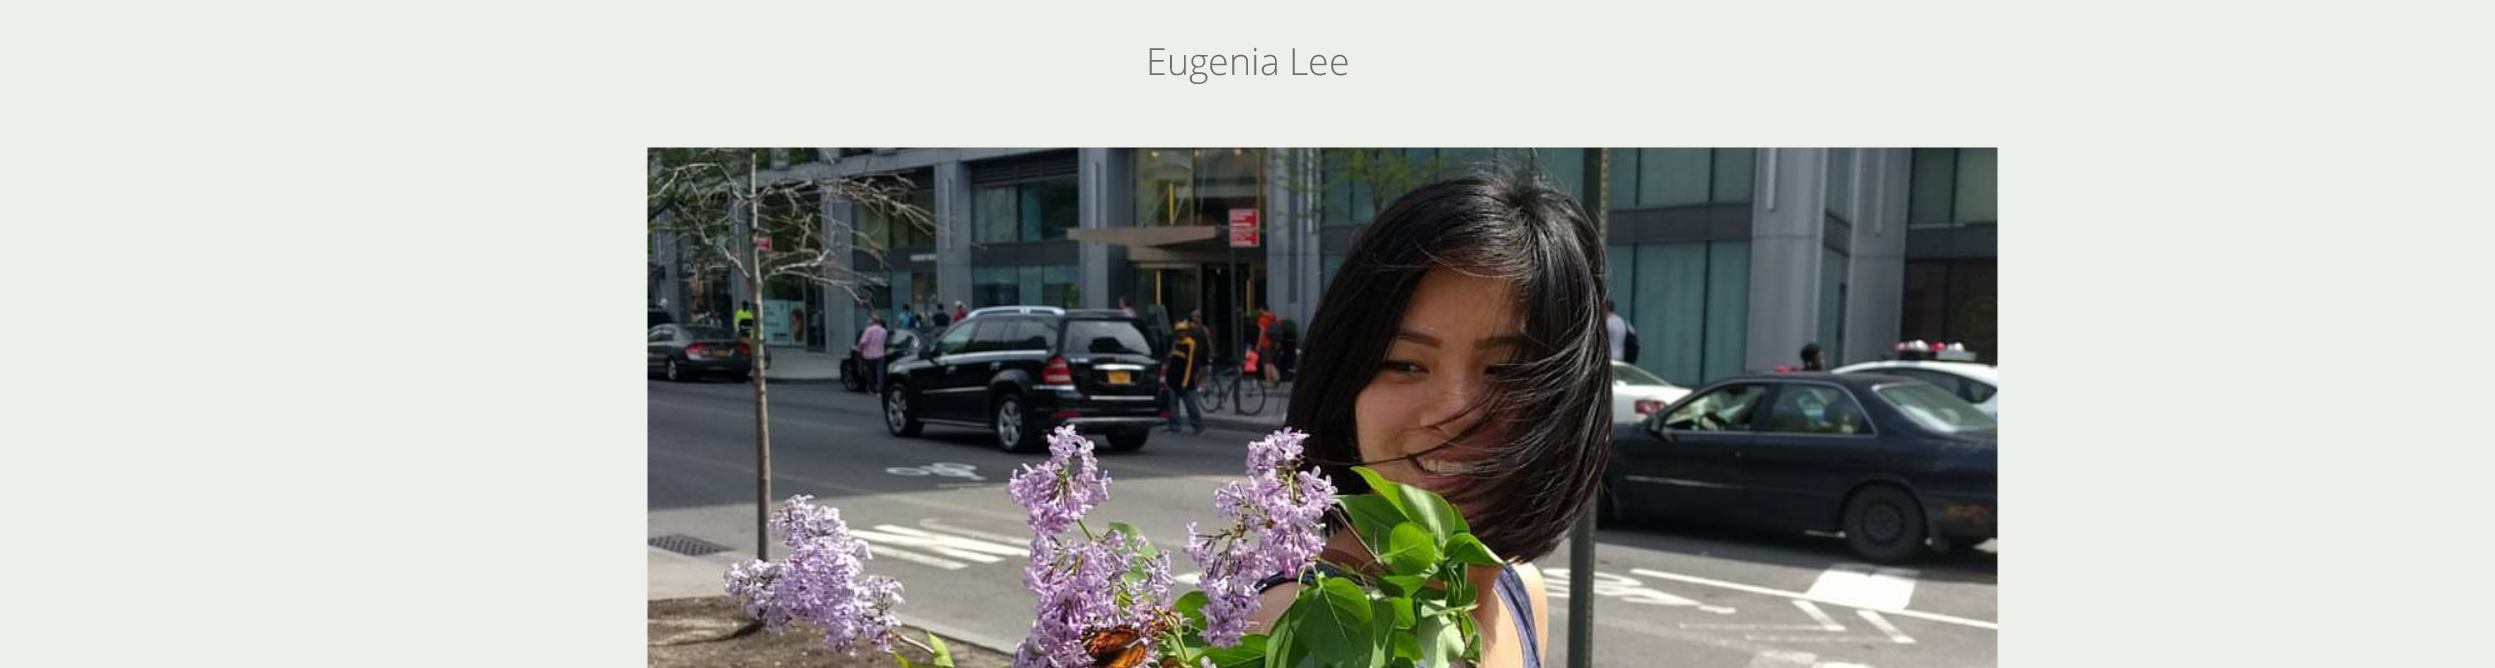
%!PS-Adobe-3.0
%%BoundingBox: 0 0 2495 668
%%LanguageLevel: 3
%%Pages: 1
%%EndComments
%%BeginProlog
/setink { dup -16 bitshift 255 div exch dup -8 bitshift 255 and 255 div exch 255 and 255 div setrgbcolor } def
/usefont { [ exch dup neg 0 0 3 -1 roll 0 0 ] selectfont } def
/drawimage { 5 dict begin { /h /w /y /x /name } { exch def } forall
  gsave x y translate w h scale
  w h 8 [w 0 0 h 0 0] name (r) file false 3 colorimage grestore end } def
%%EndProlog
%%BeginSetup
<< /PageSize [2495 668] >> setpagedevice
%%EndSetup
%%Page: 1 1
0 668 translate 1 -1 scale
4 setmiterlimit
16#EDEFEA setink
0 0 2495 668 rectfill
/OpenSans-Light 37.5 usefont
16#6C6E69 setink
1146 75 moveto (Eugenia Lee) show
(img1.raw) 647 147 1351 521 drawimage
showpage
%%EOF
